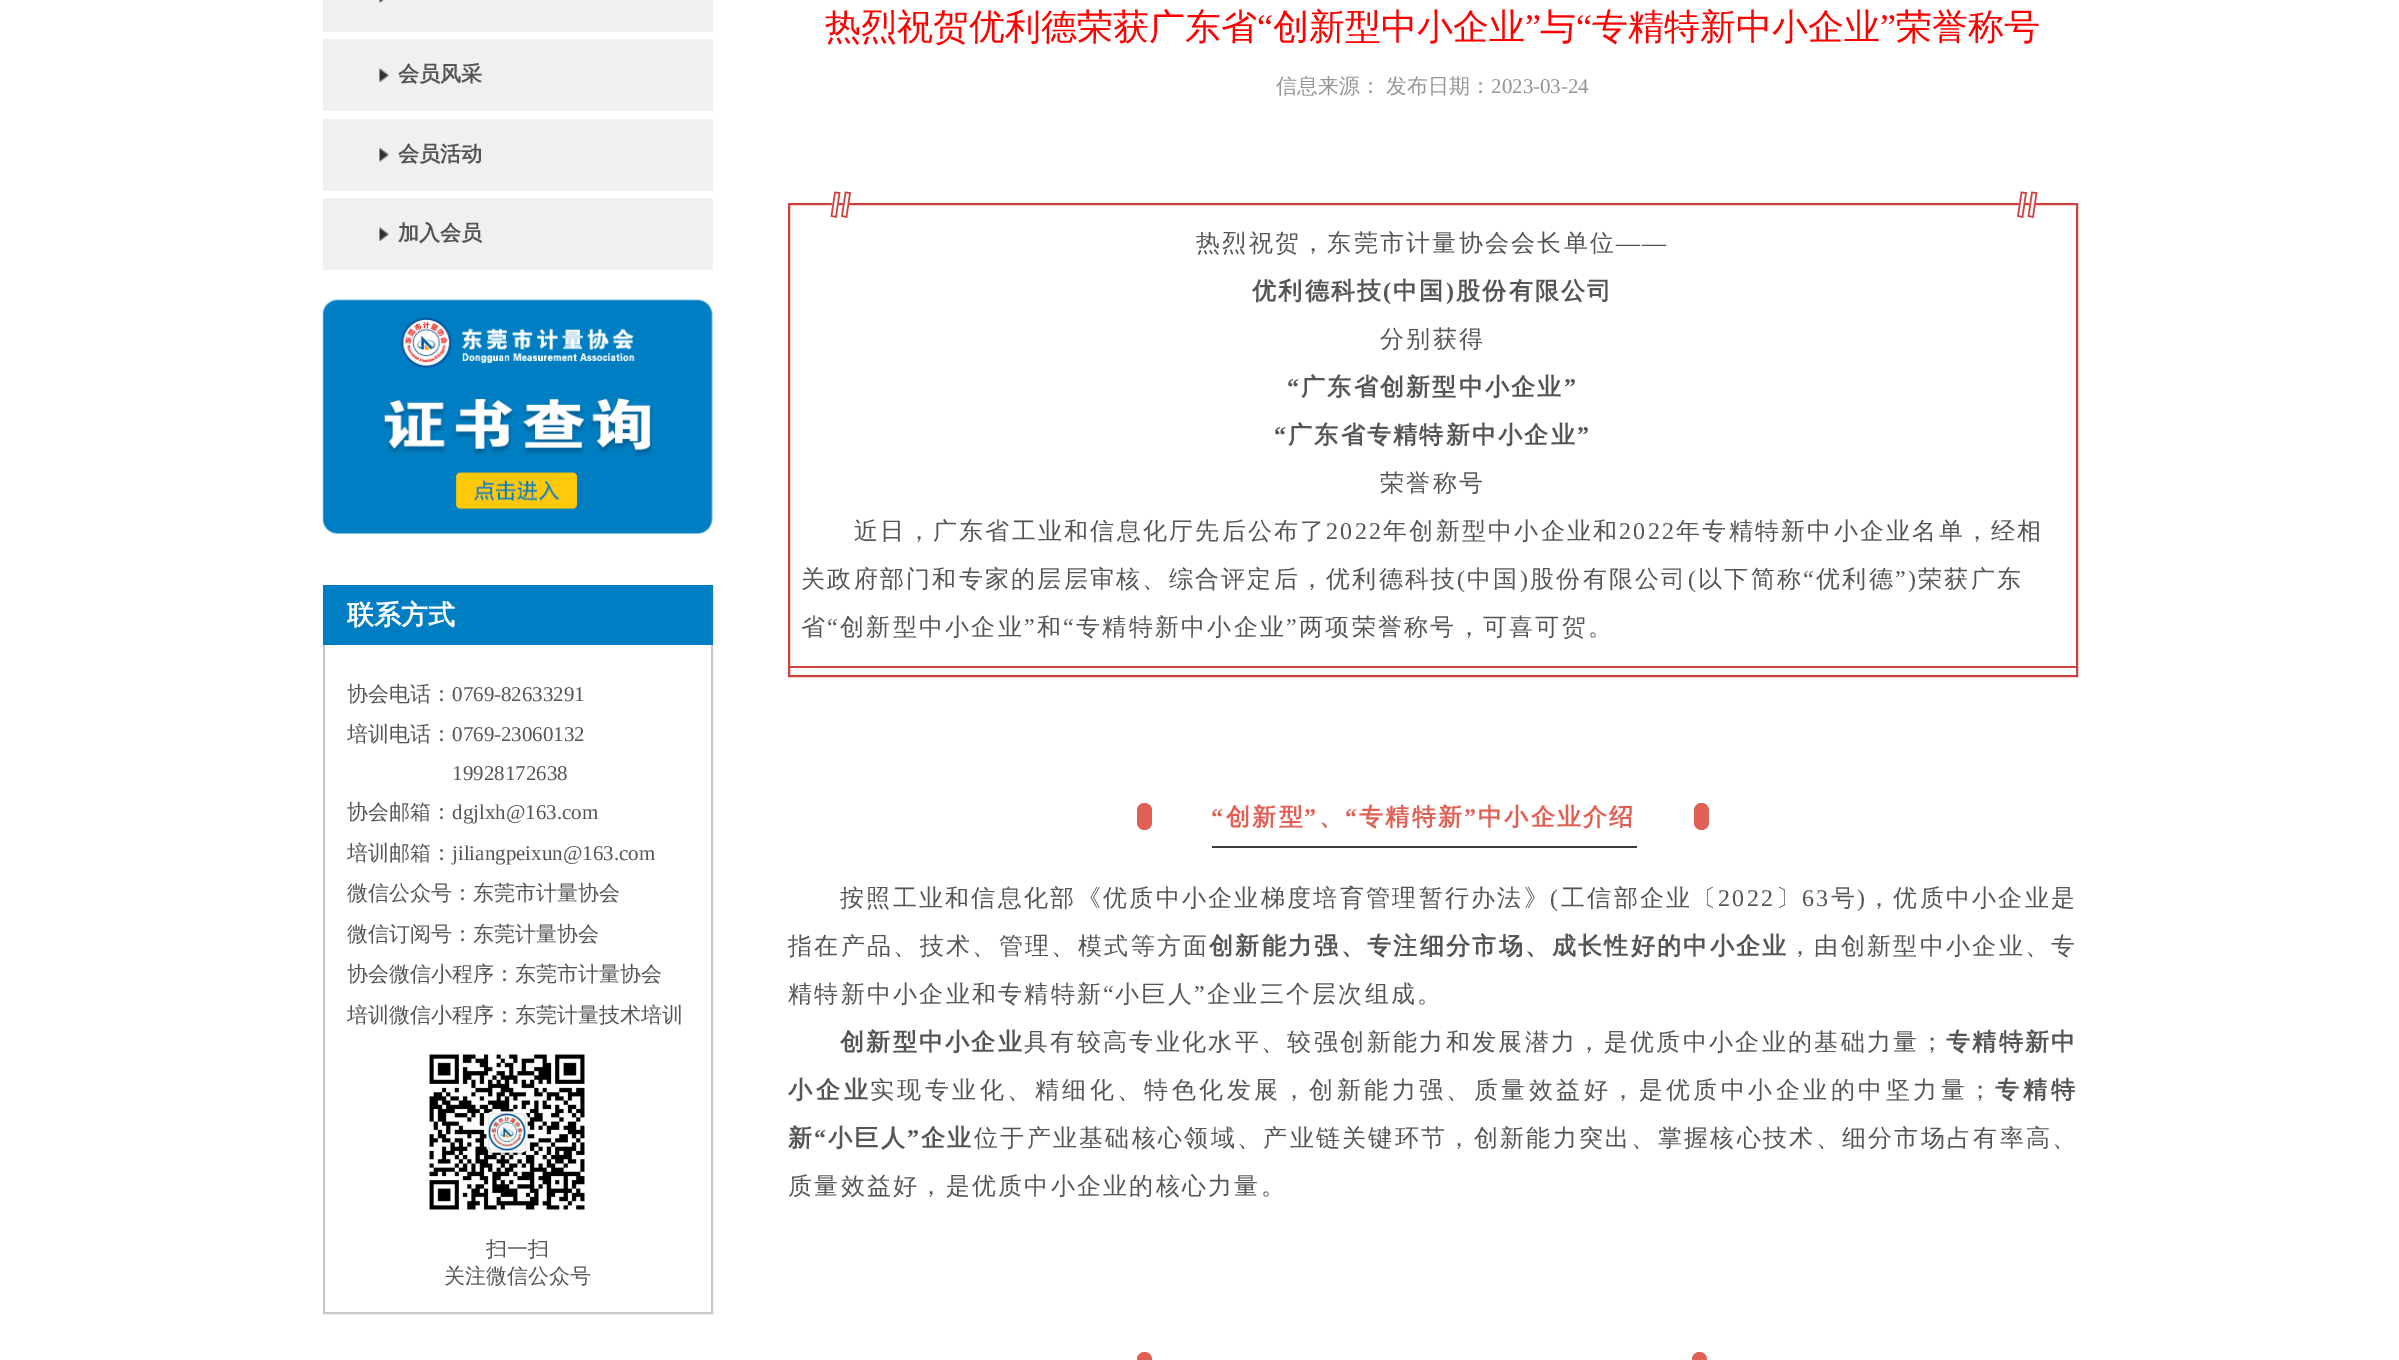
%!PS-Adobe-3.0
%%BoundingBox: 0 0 2399 1360
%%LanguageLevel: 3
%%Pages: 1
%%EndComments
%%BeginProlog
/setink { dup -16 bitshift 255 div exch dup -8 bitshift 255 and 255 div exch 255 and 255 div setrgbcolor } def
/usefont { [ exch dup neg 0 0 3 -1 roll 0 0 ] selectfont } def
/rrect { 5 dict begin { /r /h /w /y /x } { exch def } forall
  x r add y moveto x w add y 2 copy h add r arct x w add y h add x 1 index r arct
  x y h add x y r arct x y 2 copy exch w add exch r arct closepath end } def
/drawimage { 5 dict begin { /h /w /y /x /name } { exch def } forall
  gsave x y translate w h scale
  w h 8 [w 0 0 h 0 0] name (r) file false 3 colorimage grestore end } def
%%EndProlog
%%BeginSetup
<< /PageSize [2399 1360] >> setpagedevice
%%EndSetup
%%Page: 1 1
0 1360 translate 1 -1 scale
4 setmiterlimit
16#FFFFFF setink
0 0 2399 1360 rectfill
16#F0F0F0 setink
323 0 390 32 rectfill
(img1.raw) 379 0 6 3 drawimage
323 39 390 72 rectfill
(img2.raw) 379 68 10 14 drawimage
/WenQuanYiZenHei-Bold 21 usefont
16#555555 setink
398 81 moveto (会员风采) show
16#F0F0F0 setink
323 119 390 72 rectfill
(img3.raw) 379 148 10 14 drawimage
16#555555 setink
398 161 moveto (会员活动) show
16#F0F0F0 setink
323 198 390 72 rectfill
(img2.raw) 379 227 10 14 drawimage
16#555555 setink
398 240 moveto (加入会员) show
(img4.raw) 322 299 391 235 drawimage
16#C8C8C8 setink
2 setlinewidth
324 586 388 727 rectstroke
16#007EC3 setink
323 585 390 60 rectfill
/WenQuanYiZenHei-Bold 27 usefont
16#FFFFFF setink
347 624 moveto (联系方式) show
/WenQuanYiZenHei-Medium 21 usefont
16#555555 setink
347 701 moveto (协会电话：) show
/LiberationSerif-Regular 21 usefont
452 701 moveto (0769-82633291) show
/WenQuanYiZenHei-Medium 21 usefont
347 741 moveto (培训电话：) show
/LiberationSerif-Regular 21 usefont
452 741 moveto (0769-23060132) show
452 780 moveto (19928172638) show
/WenQuanYiZenHei-Medium 21 usefont
347 819 moveto (协会邮箱：) show
/LiberationSerif-Regular 21 usefont
452 819 moveto (dgjlxh@163.com) show
/WenQuanYiZenHei-Medium 21 usefont
347 860 moveto (培训邮箱：) show
/LiberationSerif-Regular 21 usefont
452 860 moveto (jiliangpeixun@163.com) show
/WenQuanYiZenHei-Medium 21 usefont
[
    [(微信公众号：东莞市计量协会) 347 900]
    [(微信订阅号：东莞计量协会) 347 941]
    [(协会微信小程序：东莞市计量协会) 347 981]
    [(培训微信小程序：东莞计量技术培训) 347 1022]
] { aload pop moveto show } forall
(img5.raw) 427 1054 158 156 drawimage
486 1256 moveto (扫一扫) show
444 1283 moveto (关注微信公众号) show
/WenQuanYiZenHei-Medium 36 usefont
16#FF0000 setink
825 39 moveto (热烈祝贺优利德荣获广东省) show
/LiberationSerif-Regular 36 usefont
1257 39 moveto (“) show
/WenQuanYiZenHei-Medium 36 usefont
1273 39 moveto (创新型中小企业) show
/LiberationSerif-Regular 36 usefont
1525 39 moveto (”) show
/WenQuanYiZenHei-Medium 36 usefont
1540 39 moveto (与) show
/LiberationSerif-Regular 36 usefont
1576 39 moveto (“) show
/WenQuanYiZenHei-Medium 36 usefont
1592 39 moveto (专精特新中小企业) show
/LiberationSerif-Regular 36 usefont
1880 39 moveto (”) show
/WenQuanYiZenHei-Medium 36 usefont
1896 39 moveto (荣誉称号) show
/WenQuanYiZenHei-Medium 21 usefont
16#959595 setink
1276 93 moveto -1 0 32 (信息来源： 发布日期：) widthshow
/LiberationSerif-Regular 21 usefont
1491 93 moveto (2023-03-24) show
16#CF413D setink
789 204 1288 472 rectstroke
16#FFFFFF setink
836.5 217.5 moveto 830.5 217 lineto 834.5 191.5 lineto 840 192.5 lineto closepath fill
16#CF413D setink
1.5 setlinewidth
836 217 moveto 831.5 216 lineto 835 192.5 lineto 839.5 193 lineto closepath stroke
16#FFFFFF setink
847 217.5 moveto 841 217 lineto 845 191.5 lineto 850.5 192.5 lineto closepath fill
16#CF413D setink
846.5 217 moveto 842 216 lineto 845.5 192.5 lineto 850 193 lineto closepath stroke
16#FFFFFF setink
2023 217.5 moveto 2017 217 lineto 2021 191.5 lineto 2026.5 192.5 lineto closepath fill
16#CF413D setink
2022.5 217 moveto 2018 216 lineto 2021.5 192.5 lineto 2026 193 lineto closepath stroke
16#FFFFFF setink
2033.5 217.5 moveto 2027.5 217 lineto 2031.5 191.5 lineto 2037 192.5 lineto closepath fill
16#CF413D setink
2033 217 moveto 2028.5 216 lineto 2032 192.5 lineto 2036.5 193 lineto closepath stroke
789 666 1287 2 rectfill
/WenQuanYiZenHei-Medium 24 usefont
16#555555 setink
1196 251 moveto 2.25 0 (热烈祝贺，东莞市计量协会会长单位) ashow
/LiberationSerif-Regular 24 usefont
1616 251 moveto 2.25 0 (——) ashow
/WenQuanYiZenHei-Bold 24 usefont
1252 299 moveto 2.25 0 (优利德科技) ashow
/LiberationSerif-Bold 24 usefont
1383 299 moveto 2.25 0 (\() ashow
/WenQuanYiZenHei-Bold 24 usefont
1393 299 moveto 2.25 0 (中国) ashow
/LiberationSerif-Bold 24 usefont
1446 299 moveto 2.25 0 (\)) ashow
/WenQuanYiZenHei-Bold 24 usefont
1456 299 moveto 2.25 0 (股份有限公司) ashow
/WenQuanYiZenHei-Medium 24 usefont
1380 347 moveto 2.25 0 (分别获得) ashow
/LiberationSerif-Bold 24 usefont
1287 395 moveto 2.25 0 (“) ashow
/WenQuanYiZenHei-Bold 24 usefont
1301 395 moveto 2.25 0 (广东省创新型中小企业) ashow
/LiberationSerif-Bold 24 usefont
1564 395 moveto 2.25 0 (”) ashow
1274 443 moveto 2.25 0 (“) ashow
/WenQuanYiZenHei-Bold 24 usefont
1288 443 moveto 2.25 0 (广东省专精特新中小企业) ashow
/LiberationSerif-Bold 24 usefont
1577 443 moveto 2.25 0 (”) ashow
/WenQuanYiZenHei-Medium 24 usefont
1380 491 moveto 2.25 0 (荣誉称号) ashow
854 539 moveto 2.25 0 (近日，广东省工业和信息化厅先后公布了) ashow
/LiberationSerif-Regular 24 usefont
1326 539 moveto 2.25 0 (2022) ashow
/WenQuanYiZenHei-Medium 24 usefont
1383 539 moveto 2.25 0 (年创新型中小企业和) ashow
/LiberationSerif-Regular 24 usefont
1619 539 moveto 2.25 0 (2022) ashow
/WenQuanYiZenHei-Medium 24 usefont
1676 539 moveto 2.25 0 (年专精特新中小企业名单，经相) ashow
801 587 moveto 2.25 0 (关政府部门和专家的层层审核、综合评定后，优利德科技) ashow
/LiberationSerif-Regular 24 usefont
1457 587 moveto 2.25 0 (\() ashow
/WenQuanYiZenHei-Medium 24 usefont
1467 587 moveto 2.25 0 (中国) ashow
/LiberationSerif-Regular 24 usefont
1520 587 moveto 2.25 0 (\)) ashow
/WenQuanYiZenHei-Medium 24 usefont
1530 587 moveto 2.25 0 (股份有限公司) ashow
/LiberationSerif-Regular 24 usefont
1688 587 moveto 2.25 0 (\() ashow
/WenQuanYiZenHei-Medium 24 usefont
1698 587 moveto 2.25 0 (以下简称) ashow
/LiberationSerif-Regular 24 usefont
1803 587 moveto 2.25 0 (“) ashow
/WenQuanYiZenHei-Medium 24 usefont
1816 587 moveto 2.25 0 (优利德) ashow
/LiberationSerif-Regular 24 usefont
1895 587 moveto 2.25 0 (”\)) ashow
/WenQuanYiZenHei-Medium 24 usefont
1918 587 moveto 2.25 0 (荣获广东) ashow
801 635 moveto 2.25 0 (省) ashow
/LiberationSerif-Regular 24 usefont
827 635 moveto 2.25 0 (“) ashow
/WenQuanYiZenHei-Medium 24 usefont
840 635 moveto 2.25 0 (创新型中小企业) ashow
/LiberationSerif-Regular 24 usefont
1024 635 moveto 2.25 0 (”) ashow
/WenQuanYiZenHei-Medium 24 usefont
1037 635 moveto 2.25 0 (和) ashow
/LiberationSerif-Regular 24 usefont
1063 635 moveto 2.25 0 (“) ashow
/WenQuanYiZenHei-Medium 24 usefont
1076 635 moveto 2.25 0 (专精特新中小企业) ashow
/LiberationSerif-Regular 24 usefont
1286 635 moveto 2.25 0 (”) ashow
/WenQuanYiZenHei-Medium 24 usefont
1299 635 moveto 2.25 0 (两项荣誉称号，可喜可贺。) ashow
16#E16054 setink
1137 803 15 27 7.5 rrect fill
/LiberationSerif-Bold 24 usefont
1211 825 moveto 2.25 0 (“) ashow
/WenQuanYiZenHei-Bold 24 usefont
1226 825 moveto 2.25 0 (创新型) ashow
/LiberationSerif-Bold 24 usefont
1304 825 moveto 2.25 0 (”) ashow
1345 825 moveto 2.25 0 (“) ashow
/WenQuanYiZenHei-Bold 24 usefont
1359 825 moveto 2.25 0 (专精特新) ashow
/LiberationSerif-Bold 24 usefont
1464 825 moveto 2.25 0 (”) ashow
/WenQuanYiZenHei-Bold 24 usefont
1478 825 moveto 2.25 0 (中小企业介绍) ashow
1319 825 moveto 2.25 0 (、) ashow
16#393939 setink
1212 846 425 2 rectfill
16#E16054 setink
1694 803 15 27 7.5 rrect fill
/WenQuanYiZenHei-Medium 24 usefont
16#555555 setink
840 906 moveto 2.3 0 (按照工业和信息化部《优质中小企业梯度培育管理暂行办法》) ashow
/LiberationSerif-Regular 24 usefont
1550 906 moveto 2.3 0 (\() ashow
/WenQuanYiZenHei-Medium 24 usefont
1561 906 moveto 2.3 0 (工信部企业〔) ashow
/LiberationSerif-Regular 24 usefont
1718 906 moveto 2.3 0 (2022) ashow
/WenQuanYiZenHei-Medium 24 usefont
1776 906 moveto 2.3 0 (〕) ashow
/LiberationSerif-Regular 24 usefont
1802 906 moveto 2.3 0 (63) ashow
/WenQuanYiZenHei-Medium 24 usefont
1831 906 moveto 2.3 0 (号) ashow
/LiberationSerif-Regular 24 usefont
1857 906 moveto 2.3 0 (\)) ashow
/WenQuanYiZenHei-Medium 24 usefont
1867 906 moveto 2.3 0 (，优质中小企业是) ashow
788 954 moveto 2.35 0 (指在产品、技术、管理、模式等方面) ashow
/WenQuanYiZenHei-Bold 24 usefont
1209 954 moveto 2.35 0 (创新能力强、专注细分市场、成长性好的中小企业) ashow
/WenQuanYiZenHei-Medium 24 usefont
1788 954 moveto 2.35 0 (，由创新型中小企业、专) ashow
788 1002 moveto 2.25 0 (精特新中小企业和专精特新) ashow
/LiberationSerif-Regular 24 usefont
1103 1002 moveto 2.25 0 (“) ashow
/WenQuanYiZenHei-Medium 24 usefont
1115 1002 moveto 2.25 0 (小巨人) ashow
/LiberationSerif-Regular 24 usefont
1194 1002 moveto 2.25 0 (”) ashow
/WenQuanYiZenHei-Medium 24 usefont
1207 1002 moveto 2.25 0 (企业三个层次组成。) ashow
/WenQuanYiZenHei-Bold 24 usefont
840 1050 moveto 2.25 0 (创新型中小企业) ashow
/WenQuanYiZenHei-Medium 24 usefont
1024 1050 moveto 2.35 0 (具有较高专业化水平、较强创新能力和发展潜力，是优质中小企业的基础力量；) ashow
/WenQuanYiZenHei-Bold 24 usefont
1946 1050 moveto 2.25 0 (专精特新中) ashow
788 1098 moveto 4 0 (小企业) ashow
/WenQuanYiZenHei-Medium 24 usefont
870 1098 moveto 3.45 0 (实现专业化、精细化、特色化发展，创新能力强、质量效益好，是优质中小企业的中坚力量；) ashow
/WenQuanYiZenHei-Bold 24 usefont
1995 1098 moveto 4 0 (专精特) ashow
788 1146 moveto 2.25 0 (新) ashow
/LiberationSerif-Bold 24 usefont
814 1146 moveto 2.25 0 (“) ashow
/WenQuanYiZenHei-Bold 24 usefont
828 1146 moveto 2.25 0 (小巨人) ashow
/LiberationSerif-Bold 24 usefont
907 1146 moveto 2.25 0 (”) ashow
/WenQuanYiZenHei-Bold 24 usefont
921 1146 moveto 2.25 0 (企业) ashow
/WenQuanYiZenHei-Medium 24 usefont
974 1146 moveto 2.3 0 (位于产业基础核心领域、产业链关键环节，创新能力突出、掌握核心技术、细分市场占有率高、) ashow
788 1194 moveto 2.25 0 (质量效益好，是优质中小企业的核心力量。) ashow
16#E16054 setink
1137 1352 15 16 7.5 rrect fill
1692 1352 15 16 7.5 rrect fill
showpage
%%EOF
